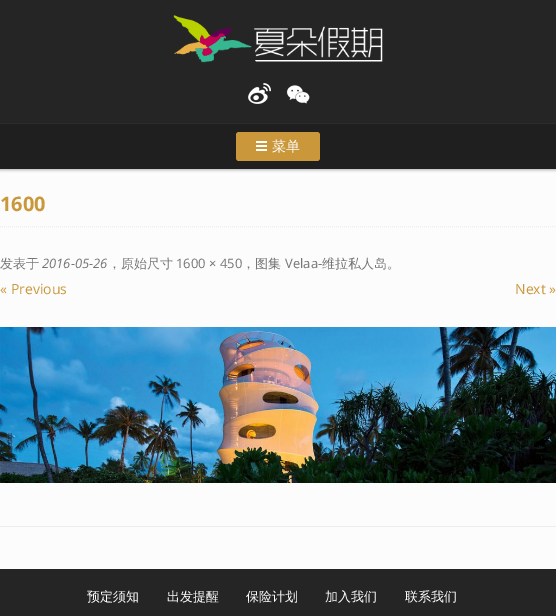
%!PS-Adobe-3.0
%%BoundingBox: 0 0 556 616
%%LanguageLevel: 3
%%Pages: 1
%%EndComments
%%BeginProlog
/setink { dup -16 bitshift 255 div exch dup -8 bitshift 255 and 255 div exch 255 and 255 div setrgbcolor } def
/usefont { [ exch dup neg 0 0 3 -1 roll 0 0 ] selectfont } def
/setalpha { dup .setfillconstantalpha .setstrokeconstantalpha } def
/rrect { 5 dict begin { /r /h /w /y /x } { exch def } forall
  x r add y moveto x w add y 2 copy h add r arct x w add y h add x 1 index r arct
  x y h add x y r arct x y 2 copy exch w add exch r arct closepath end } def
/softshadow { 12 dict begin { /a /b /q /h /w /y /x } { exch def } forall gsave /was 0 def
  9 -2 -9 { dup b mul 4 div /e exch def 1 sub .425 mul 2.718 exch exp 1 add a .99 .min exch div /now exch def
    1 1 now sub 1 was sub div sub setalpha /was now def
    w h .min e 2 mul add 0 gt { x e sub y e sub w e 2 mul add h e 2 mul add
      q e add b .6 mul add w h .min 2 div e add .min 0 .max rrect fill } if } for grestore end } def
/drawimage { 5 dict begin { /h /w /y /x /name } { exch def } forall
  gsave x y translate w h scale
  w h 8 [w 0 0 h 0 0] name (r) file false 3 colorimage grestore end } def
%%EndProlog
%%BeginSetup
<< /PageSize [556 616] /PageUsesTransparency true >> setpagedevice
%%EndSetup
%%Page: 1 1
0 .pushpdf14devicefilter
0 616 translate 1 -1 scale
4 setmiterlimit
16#FCFCFC setink
0 0 556 616 rectfill
16#000000 setink
0 1 556 169 0 1.5 0.3 softshadow
16#252525 setink
0 0 556 123 rectfill
(img1.raw) 173 15 210 48 drawimage
(img2.raw) 248 83 23 21 drawimage
(img3.raw) 286 85 24 19 drawimage
16#1F1F1F setink
0 124 556 45 rectfill
16#2C2C2C setink
0 123 556 1 rectfill
16#CA983B setink
236 132 84 29 3 rrect fill
(img4.raw) 256 141 11 10 drawimage
/WenQuanYiZenHei-Medium 14 usefont
16#FFFFFF setink
272 151 moveto (菜单) show
16#EDEDED setink
0 526 556 1 rectfill
[1 1] 0 setdash
0 226.5 moveto 556 226.5 lineto stroke
/OpenSans-Bold 20 usefont
16#CA983B setink
0 211 moveto (1600) show
/WenQuanYiZenHei-Medium 13 usefont
16#757575 setink
0 268 moveto (发表于) show
/OpenSans-Italic 13 usefont
42 268 moveto (2016-05-26) show
/WenQuanYiZenHei-Medium 13 usefont
108 268 moveto (，原始尺寸) show
/OpenSans-Regular 13 usefont
176 268 moveto (1600 × 450) show
/WenQuanYiZenHei-Medium 13 usefont
242 268 moveto (，图集) show
/OpenSans-Regular 13 usefont
285 268 moveto (Velaa-) show
/WenQuanYiZenHei-Medium 13 usefont
322 268 moveto (维拉私人岛。) show
/OpenSans-Regular 14 usefont
16#CA983B setink
0 294 moveto (« Previous) show
515 294 moveto (Next ») show
(img5.raw) 0 327 556 156 drawimage
16#252525 setink
0 569 556 47 rectfill
/WenQuanYiZenHei-Medium 13 usefont
16#FFFFFF setink
[
    [(预定须知) 87 601]
    [(出发提醒) 167 601]
    [(保险计划) 246 601]
    [(加入我们) 325 601]
    [(联系我们) 405 601]
] { aload pop moveto show } forall
.poppdf14devicefilter showpage
%%EOF
